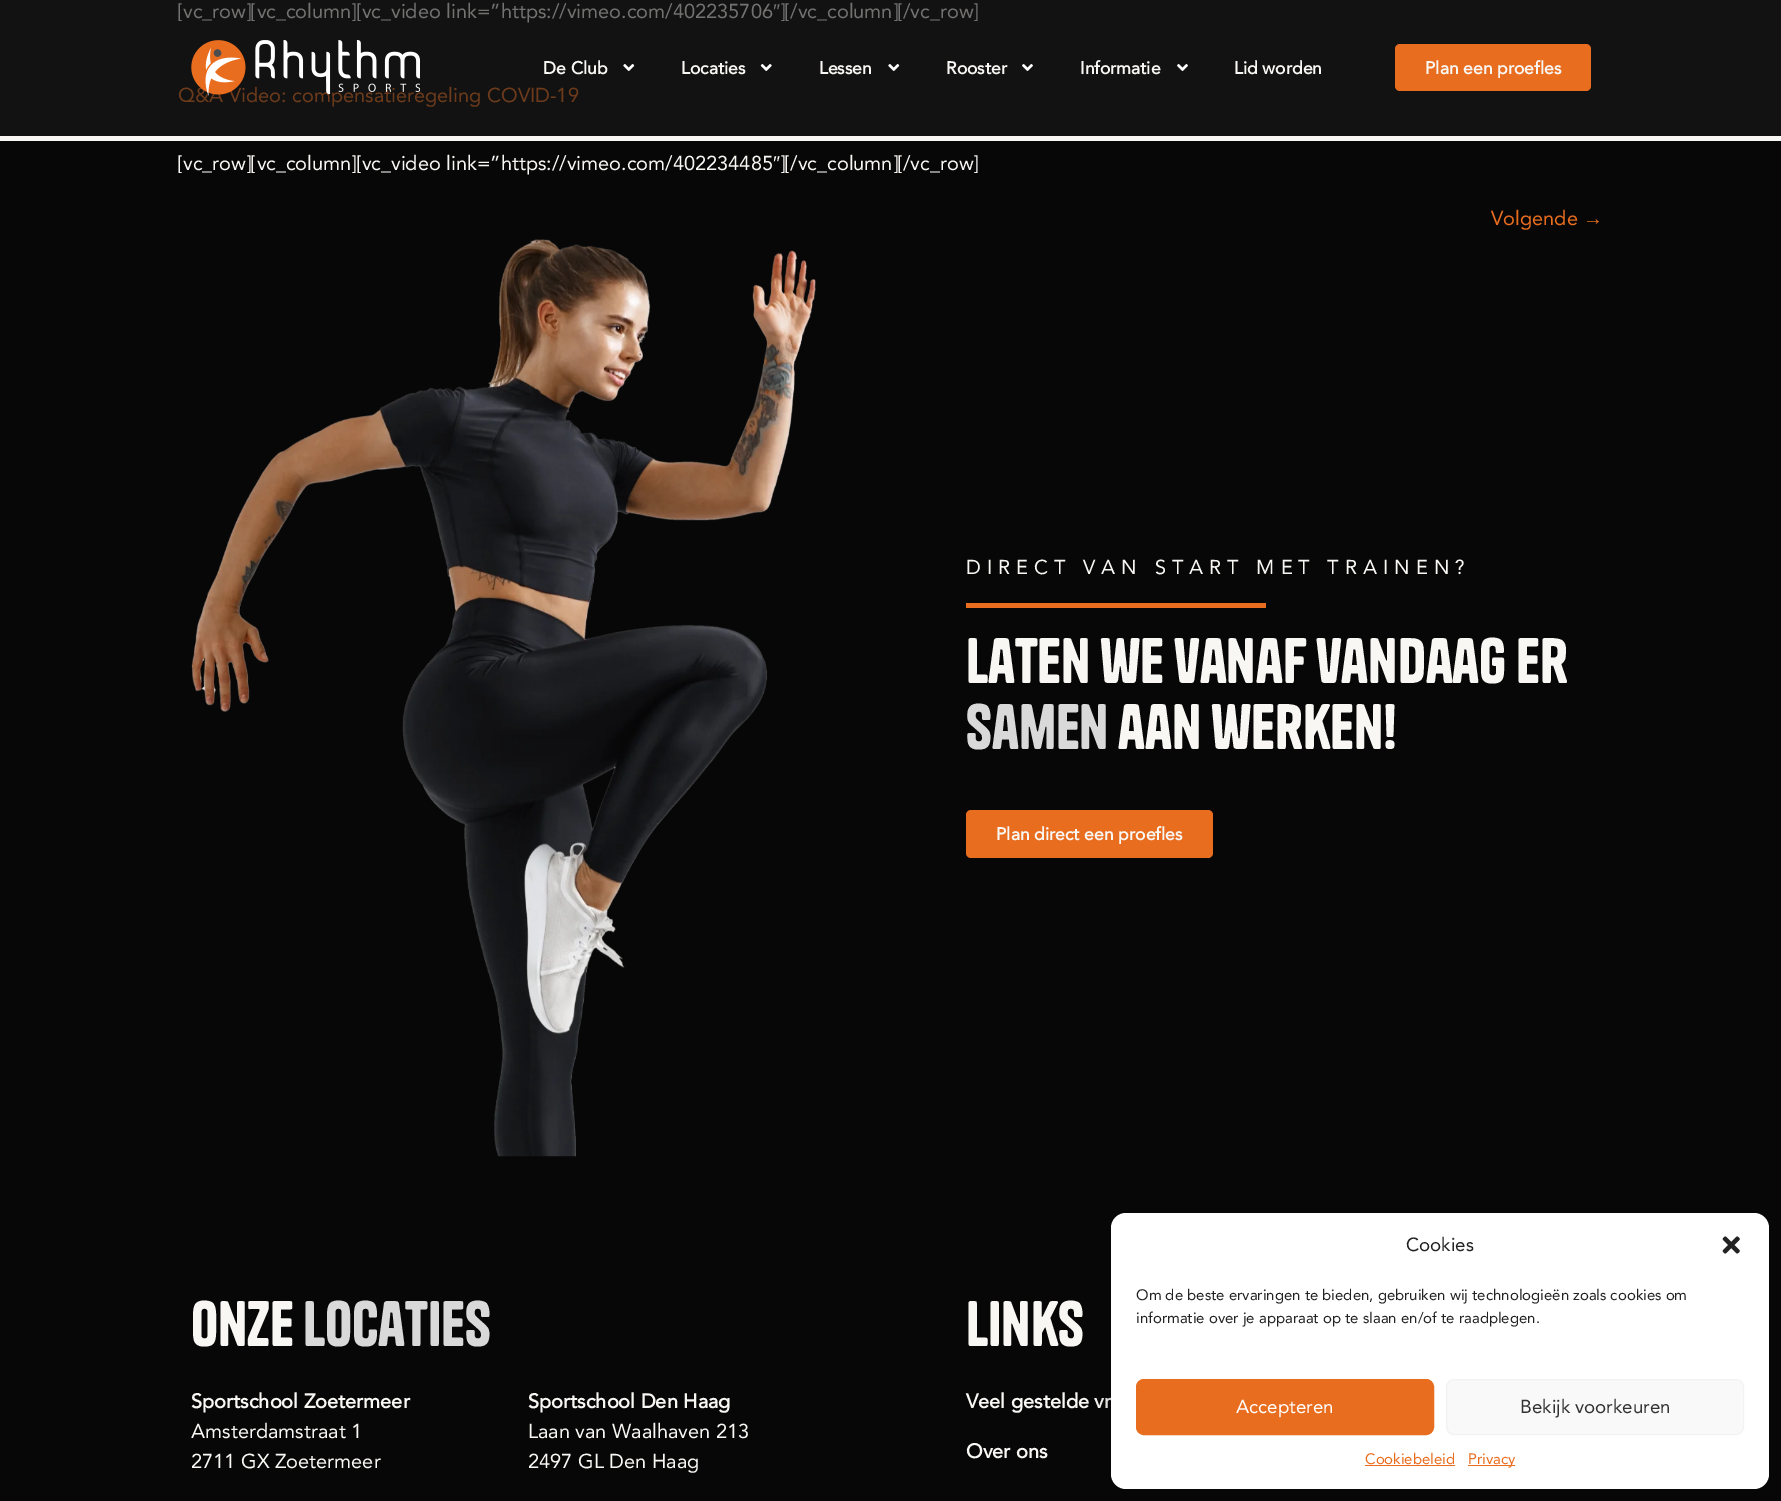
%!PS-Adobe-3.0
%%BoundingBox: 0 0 1781 1501
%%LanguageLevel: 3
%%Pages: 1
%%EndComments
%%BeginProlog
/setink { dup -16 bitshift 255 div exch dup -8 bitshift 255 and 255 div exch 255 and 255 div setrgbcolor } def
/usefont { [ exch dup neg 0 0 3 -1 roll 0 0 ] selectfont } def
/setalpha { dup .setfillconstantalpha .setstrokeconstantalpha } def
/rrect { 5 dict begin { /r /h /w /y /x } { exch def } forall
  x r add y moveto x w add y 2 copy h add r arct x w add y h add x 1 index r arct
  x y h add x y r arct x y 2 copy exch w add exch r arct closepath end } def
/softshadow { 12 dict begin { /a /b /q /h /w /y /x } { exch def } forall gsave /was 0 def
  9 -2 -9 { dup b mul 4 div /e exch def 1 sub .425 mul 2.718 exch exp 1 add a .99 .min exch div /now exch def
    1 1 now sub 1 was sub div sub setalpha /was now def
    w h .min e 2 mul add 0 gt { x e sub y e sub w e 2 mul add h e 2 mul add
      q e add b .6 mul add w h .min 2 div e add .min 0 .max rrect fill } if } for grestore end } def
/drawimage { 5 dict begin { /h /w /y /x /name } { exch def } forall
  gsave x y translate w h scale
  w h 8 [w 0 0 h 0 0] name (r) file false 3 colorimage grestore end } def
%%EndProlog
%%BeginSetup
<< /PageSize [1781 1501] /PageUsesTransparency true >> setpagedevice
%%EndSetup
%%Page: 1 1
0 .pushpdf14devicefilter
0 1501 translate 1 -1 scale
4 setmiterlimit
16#070707 setink
0 0 1781 1501 rectfill
16#121212 setink
0 0 1781 136 rectfill
/Avenir-Regular 20 usefont
16#737271 setink
178 18 moveto ([vc_row][vc_column][vc_video link=”https://vimeo.com/402235706) show
/LiberationSans-Regular 20 usefont
773 18 moveto (″) show
/Avenir-Regular 20 usefont
780 18 moveto (][/vc_column][/vc_row]) show
16#6D3B1B setink
178 102 moveto (Q&A Video: compensatieregeling COVID-19) show
16#F8F7F4 setink
178 170 moveto ([vc_row][vc_column][vc_video link=”https://vimeo.com/402234485) show
/LiberationSans-Regular 20 usefont
773 170 moveto (″) show
/Avenir-Regular 20 usefont
780 170 moveto (][/vc_column][/vc_row]) show
16#E96D1F setink
1491 225 moveto (Volgende) show
/LiberationSans-Regular 20 usefont
1583 225 moveto (→) show
16#F8F7F4 setink
0 136 1781 5 rectfill
(img1.raw) 191 40 229 56 drawimage
/Avenir-Bold 17.5 usefont
543 74 moveto (De Club) show
(img2.raw) 623 64 12 7 drawimage
681 74 moveto (Locaties) show
(img3.raw) 760 64 12 7 drawimage
819 74 moveto (Lessen) show
(img2.raw) 888 64 12 7 drawimage
946 74 moveto (Rooster) show
(img4.raw) 1022 64 11 7 drawimage
1080 74 moveto (Informatie) show
(img4.raw) 1177 64 11 7 drawimage
1234 74 moveto (Lid worden) show
16#E96D1F setink
1395 44 196 47 5 rrect fill
16#F8F7F4 setink
1425 74 moveto (Plan een proefles) show
(img5.raw) 191 239 625 918 drawimage
/Avenir-Regular 20 usefont
966 574 moveto 6 0 (DIRECT VAN START MET TRAINEN?) ashow
16#E96D1F setink
966 603 300 5 rectfill
/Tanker-Regular 60 usefont
16#F8F7F4 setink
966 683 moveto (Laten we vanaf vandaag er) show
16#D9D9D9 setink
966 749 moveto (samen) show
16#F8F7F4 setink
1118 749 moveto (aan werken!) show
16#E96D1F setink
966 810 247 48 5 rrect fill
/Avenir-Bold 17.5 usefont
16#F8F7F4 setink
996 840 moveto (Plan direct een proefles) show
/Tanker-Regular 60 usefont
191 1346 moveto (Onze) show
16#D9D9D9 setink
303 1346 moveto (locaties) show
/Avenir-Bold 20 usefont
16#F8F7F4 setink
191 1408 moveto (Sportschool Zoetermeer) show
/Avenir-Regular 20 usefont
191 1438 moveto (Amsterdamstraat 1) show
191 1468 moveto (2711 GX Zoetermeer) show
/Avenir-Bold 20 usefont
528 1408 moveto (Sportschool Den Haag) show
/Avenir-Regular 20 usefont
528 1438 moveto (Laan van Waalhaven 213) show
528 1468 moveto (2497 GL Den Haag) show
/Tanker-Regular 60 usefont
966 1346 moveto (Links) show
/Avenir-Bold 20 usefont
966 1408 moveto (Veel gestelde vr) show
966 1458 moveto (Over ons) show
16#000000 setink
1111 1220 658 276 15 4 0.23 softshadow
1111 1225 658 276 15 12.5 0.19 softshadow
16#FFFFFF setink
1111 1213 658 276 15 rrect fill
/Avenir-Regular 18.75 usefont
16#222222 setink
1406 1251 moveto (Cookies) show
(img6.raw) 1722 1236 18 18 drawimage
/Avenir-Regular 15 usefont
1136 1300 moveto (Om de beste ervaringen te bieden, gebruiken wij technologieën zoals cookies om) show
1136 1323 moveto (informatie over je apparaat op te slaan en/of te raadplegen.) show
16#E96D1F setink
1136.5 1379.5 297 55 7.5 rrect gsave fill grestore
stroke
/Avenir-Regular 18.75 usefont
16#FFFFFF setink
1236 1413 moveto (Accepteren) show
16#F9F9F9 setink
1446.5 1379.5 297 55 7.5 rrect gsave fill grestore
16#F2F2F2 setink
stroke
16#333333 setink
1520 1413 moveto (Bekijk voorkeuren) show
/Avenir-Regular 15 usefont
16#E96D1F setink
1365 1464 moveto (Cookiebeleid) show
1365 1465 90 1 rectfill
1468 1465 47 1 rectfill
1468 1464 moveto (Privacy) show
.poppdf14devicefilter showpage
%%EOF
